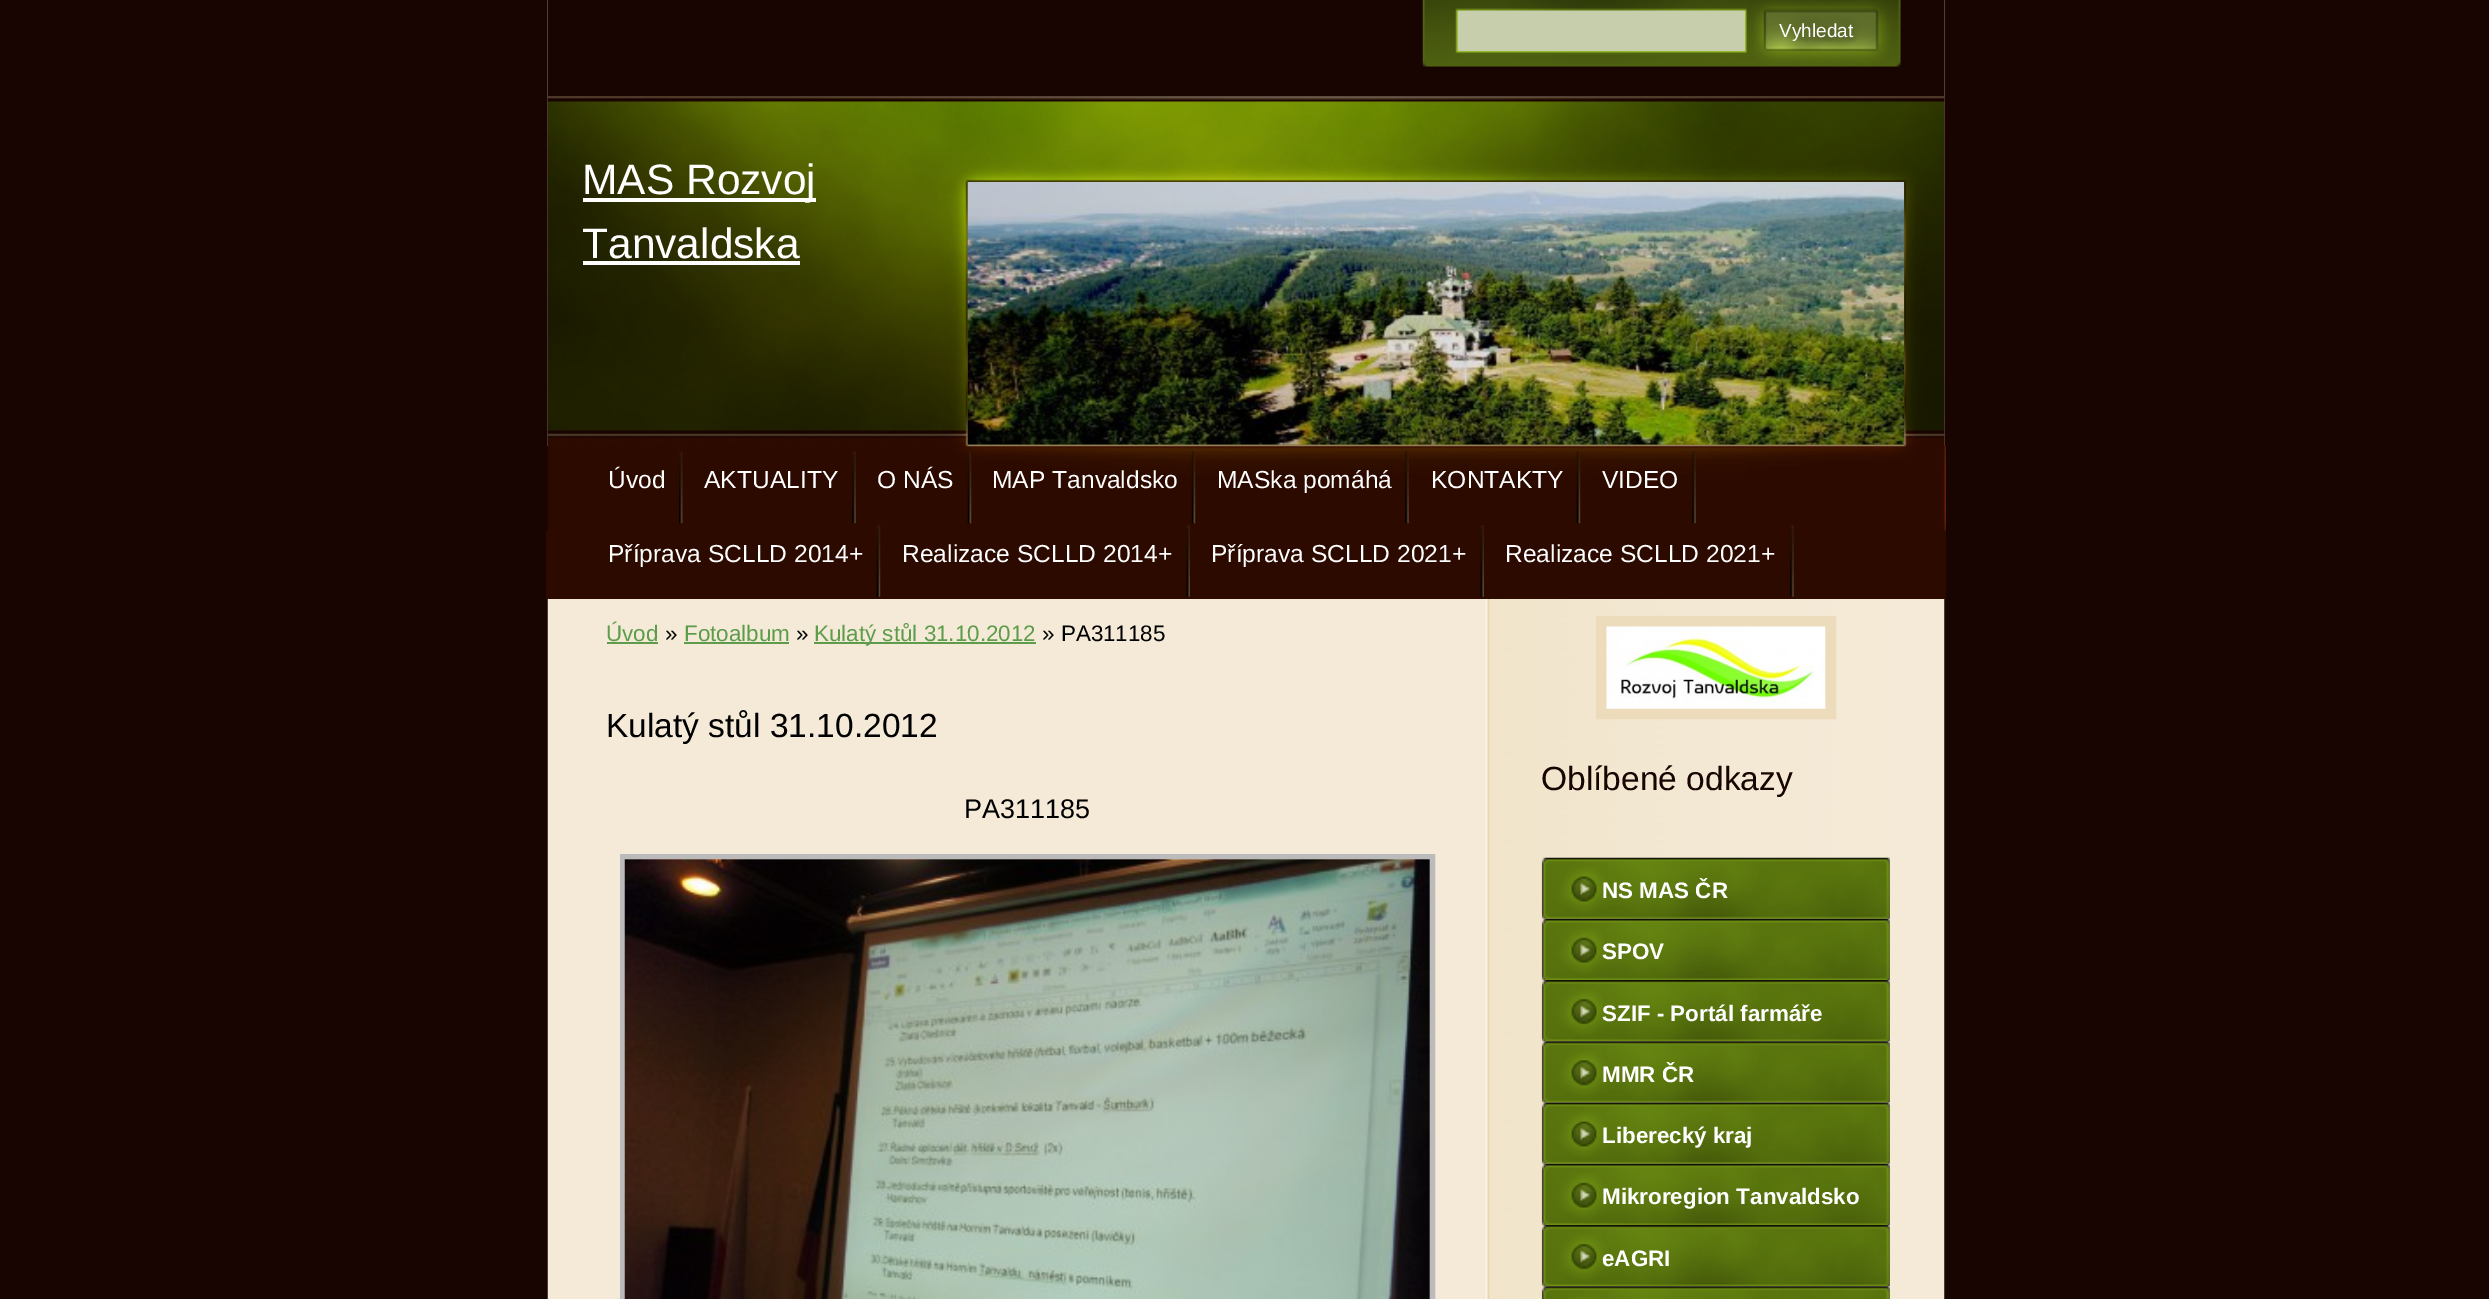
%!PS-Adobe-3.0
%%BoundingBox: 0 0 2489 1299
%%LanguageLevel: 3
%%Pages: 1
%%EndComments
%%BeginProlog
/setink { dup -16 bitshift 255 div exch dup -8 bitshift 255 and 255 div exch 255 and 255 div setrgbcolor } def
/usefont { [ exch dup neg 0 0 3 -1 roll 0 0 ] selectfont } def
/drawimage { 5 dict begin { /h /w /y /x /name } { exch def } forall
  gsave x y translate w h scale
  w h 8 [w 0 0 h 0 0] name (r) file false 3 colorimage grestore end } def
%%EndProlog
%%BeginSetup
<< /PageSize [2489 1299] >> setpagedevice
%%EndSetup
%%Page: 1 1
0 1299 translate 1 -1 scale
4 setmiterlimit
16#180400 setink
0 0 2489 1299 rectfill
(img1.raw) 547 0 1398 1299 drawimage
548 0 1396 97 rectfill
(img2.raw) 1422 0 479 67 drawimage
16#C6CEAC setink
1458 11 287 40 rectfill
/LiberationSans-Regular 19 usefont
16#FFFFFF setink
1779 37 moveto (Vyhledat) show
16#ECDCBC setink
11 setlinewidth
1601.5 621.5 229 92 rectstroke
(img3.raw) 1606 626 220 83 drawimage
/LiberationSans-Regular 33.5 usefont
16#180400 setink
1541 790 moveto (Oblíbené odkazy) show
(img4.raw) 1541 857 349 62 drawimage
/LiberationSans-Bold 22.4 usefont
16#FFFFFF setink
1602 898 moveto (NS MAS ČR) show
(img5.raw) 1541 918 349 62 drawimage
1602 959 moveto (SPOV) show
(img6.raw) 1541 980 349 62 drawimage
1602 1021 moveto (SZIF - Portál farmáře) show
(img7.raw) 1541 1041 349 62 drawimage
1602 1082 moveto (MMR ČR) show
(img8.raw) 1541 1102 349 62 drawimage
1602 1143 moveto (Liberecký kraj) show
(img9.raw) 1541 1163 349 62 drawimage
1602 1204 moveto (Mikroregion Tanvaldsko) show
(img10.raw) 1541 1225 349 62 drawimage
1602 1266 moveto (eAGRI) show
(img11.raw) 1541 1286 349 13 drawimage
16#2D0A00 setink
546 446 1400 153 rectfill
(img12.raw) 546 446 1400 85 drawimage
(img13.raw) 679 451 4 73 drawimage
/LiberationSans-Regular 24.6 usefont
16#FFFFFF setink
608 488 moveto (Úvod) show
(img14.raw) 852 451 4 73 drawimage
704 488 moveto (AKTUALITY) show
(img15.raw) 967 451 5 73 drawimage
877 488 moveto (O NÁS) show
(img16.raw) 1191 451 5 73 drawimage
992 488 moveto (MAP Tanvaldsko) show
(img17.raw) 1405 451 4 73 drawimage
1217 488 moveto (MASka pomáhá) show
(img18.raw) 1576 451 5 73 drawimage
1431 488 moveto (KONTAKTY) show
(img19.raw) 1692 451 4 73 drawimage
1602 488 moveto (VIDEO) show
(img20.raw) 876 525 5 72 drawimage
608 562 moveto (Příprava SCLLD 2014+) show
(img21.raw) 1186 525 4 72 drawimage
902 562 moveto (Realizace SCLLD 2014+) show
(img21.raw) 1480 525 4 72 drawimage
1211 562 moveto (Příprava SCLLD 2021+) show
(img22.raw) 1790 525 4 72 drawimage
1505 562 moveto (Realizace SCLLD 2021+) show
/LiberationSans-Regular 22.4 usefont
16#5C9C4B setink
606 641 moveto (Úvod) show
607 642 51 2 rectfill
16#000000 setink
665 641 moveto (») show
16#5C9C4B setink
684 641 moveto (Fotoalbum) show
684 642 105 2 rectfill
16#000000 setink
796 641 moveto (») show
16#5C9C4B setink
814 642 222 2 rectfill
814 641 moveto (Kulatý stůl 31.10.2012) show
16#000000 setink
1042 641 moveto (» PA311185) show
/LiberationSans-Regular 33.5 usefont
606 737 moveto (Kulatý stůl 31.10.2012) show
/LiberationSans-Regular 27 usefont
964 818 moveto (PA311185) show
16#BBBBBB setink
5 setlinewidth
622.5 856.5 810 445 rectstroke
(img23.raw) 624 859 806 440 drawimage
(img24.raw) 547 96 1398 351 drawimage
16#FFFFFF setink
583 198 233 4 rectfill
/LiberationSans-Regular 42.5 usefont
582 194 moveto (MAS Rozvoj) show
gsave
583 149 376 262 rectclip
582 258 moveto (Tanvaldska) show
grestore
583 261 217 4 rectfill
(img25.raw) 967 182 937 263 drawimage
showpage
%%EOF
